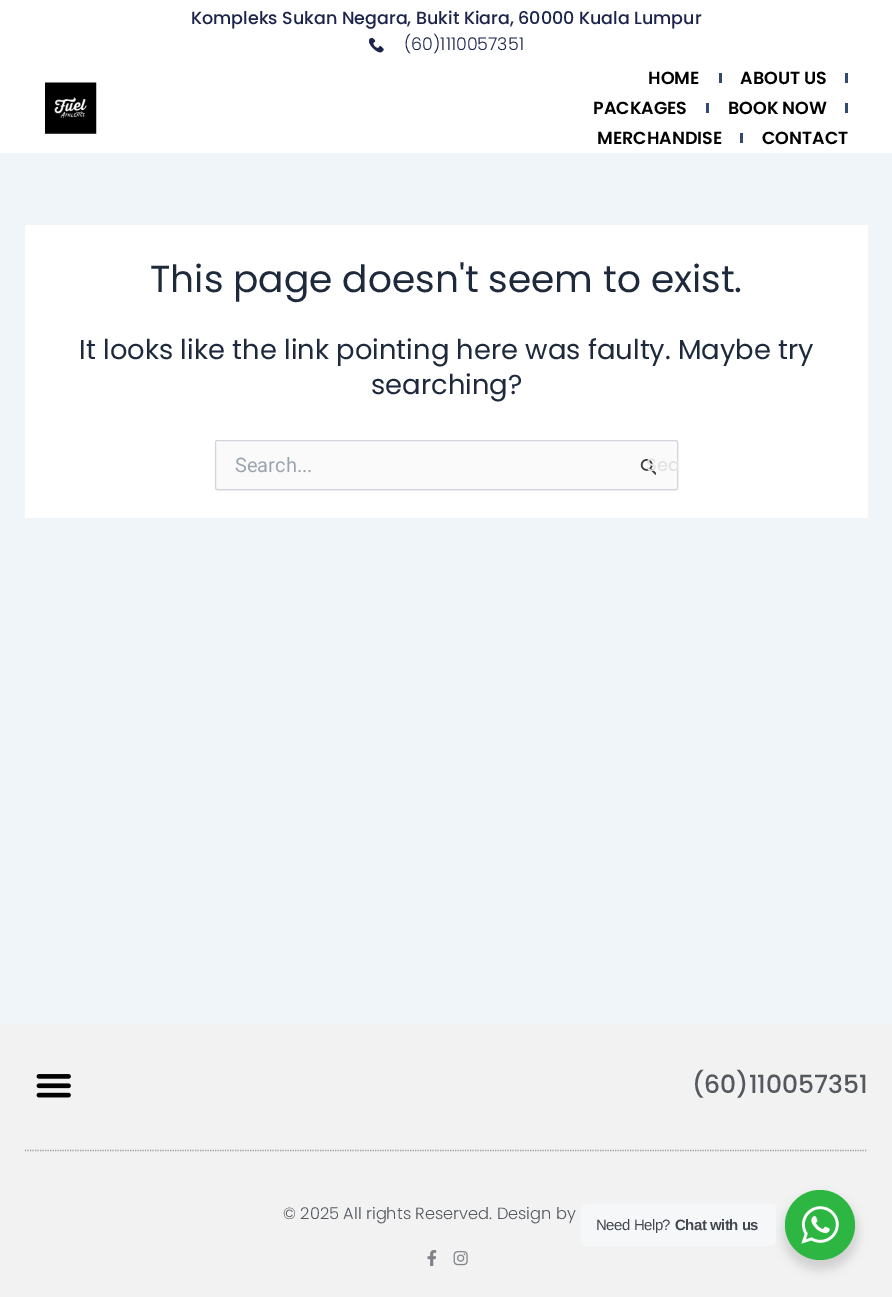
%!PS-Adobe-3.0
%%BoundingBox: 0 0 892 1297
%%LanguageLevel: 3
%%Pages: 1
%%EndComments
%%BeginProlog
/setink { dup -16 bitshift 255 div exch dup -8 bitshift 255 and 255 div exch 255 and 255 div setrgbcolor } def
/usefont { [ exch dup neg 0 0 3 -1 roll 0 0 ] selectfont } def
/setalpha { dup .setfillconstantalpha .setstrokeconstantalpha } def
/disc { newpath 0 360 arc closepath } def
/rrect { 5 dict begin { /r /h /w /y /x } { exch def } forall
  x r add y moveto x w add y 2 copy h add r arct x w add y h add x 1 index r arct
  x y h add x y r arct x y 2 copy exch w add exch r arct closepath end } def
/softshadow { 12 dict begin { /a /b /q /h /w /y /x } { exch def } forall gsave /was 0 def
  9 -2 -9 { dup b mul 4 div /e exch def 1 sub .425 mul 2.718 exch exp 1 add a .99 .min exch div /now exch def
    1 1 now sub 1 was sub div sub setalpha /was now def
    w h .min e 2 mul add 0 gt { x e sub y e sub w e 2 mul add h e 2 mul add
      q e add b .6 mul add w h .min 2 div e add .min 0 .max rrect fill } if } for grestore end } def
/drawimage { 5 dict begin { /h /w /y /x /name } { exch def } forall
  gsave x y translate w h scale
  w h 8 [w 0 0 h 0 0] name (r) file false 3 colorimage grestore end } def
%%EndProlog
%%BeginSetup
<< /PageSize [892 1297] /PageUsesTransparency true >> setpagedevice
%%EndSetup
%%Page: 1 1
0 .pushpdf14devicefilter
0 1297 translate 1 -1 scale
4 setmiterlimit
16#F0F5FA setink
0 0 892 1297 rectfill
16#FFFFFF setink
0 0 892 153 rectfill
/Poppins-Medium 17.5 usefont
16#1C244B setink
191 24 moveto (Kompleks Sukan Negara, Bukit Kiara, 60000 Kuala Lumpur) show
(img1.raw) 369 38 15 15 drawimage
/Poppins-Light 17.5 usefont
404 50 moveto (\(60\)1110057351) show
(img2.raw) 45 82 52 52 drawimage
/Poppins-SemiBold 17.5 usefont
16#000000 setink
648 84 moveto (HOME) show
16#324A6D setink
719 73 3 10 rectfill
16#000000 setink
740 84 moveto (ABOUT US) show
16#324A6D setink
845 73 3 10 rectfill
16#000000 setink
593 114 moveto (PACKAGES) show
16#324A6D setink
706 103 3 10 rectfill
16#000000 setink
728 114 moveto (BOOK NOW) show
16#324A6D setink
845 103 3 10 rectfill
16#000000 setink
597 144 moveto (MERCHANDISE) show
16#324A6D setink
740 133 3 10 rectfill
16#000000 setink
762 144 moveto (CONTACT) show
16#FFFFFF setink
25 225 843 293 rectfill
/Poppins-Regular 37.5 usefont
16#1E293B setink
150 292 moveto (This page doesn't seem to exist.) show
/Poppins-Regular 27.35 usefont
79 359 moveto (It looks like the link pointing here was faulty. Maybe try) show
371 394 moveto (searching?) show
16#000000 setink
215 441 463 50 2.5 1 0.05 softshadow
16#FAFAFA setink
215.5 440.5 462 49 2 rrect gsave fill grestore
16#D1D5DB setink
stroke
/Roboto-Regular 20 usefont
16#9CA3AF setink
235 472 moveto (Search...) show
(img3.raw) 640 459 16 16 drawimage
gsave
621 440 57 51 2.5 rrect clip newpath
/Poppins-Medium 18 usefont
16#E3E3E3 setink
646 471 moveto (Sea) show
grestore
16#F2F2F2 setink
0 1025 892 272 rectfill
16#9B9B9B setink
1.2 setlinewidth
[1.25 1.25] 0 setdash
25 1150.5 moveto 867.5 1150.5 lineto stroke
(img4.raw) 36 1074 35 24 drawimage
/Poppins-Medium 25 usefont
16#54595F setink
692 1093 moveto (\(60\)110057351) show
/Poppins-Light 16.25 usefont
283 1219 moveto (© 2025 All rights Reserved. Design by) show
(img5.raw) 427 1250 10 16 drawimage
(img6.raw) 453 1251 15 15 drawimage
16#000000 setink
783 1195 75 75 37.5 5 0.14 softshadow
16#F5F7F9 setink
581 1204 195 42 5 rrect fill
/LiberationSans-Regular 15 usefont
16#43474E setink
596 1230 moveto -0.5 0 (Need Help?) ashow
/LiberationSans-Bold 15 usefont
675 1230 moveto -0.5 0 (Chat with us) ashow
16#2DB742 setink
820 1225 35 disc fill
(img7.raw) 801 1206 38 38 drawimage
.poppdf14devicefilter showpage
%%EOF
